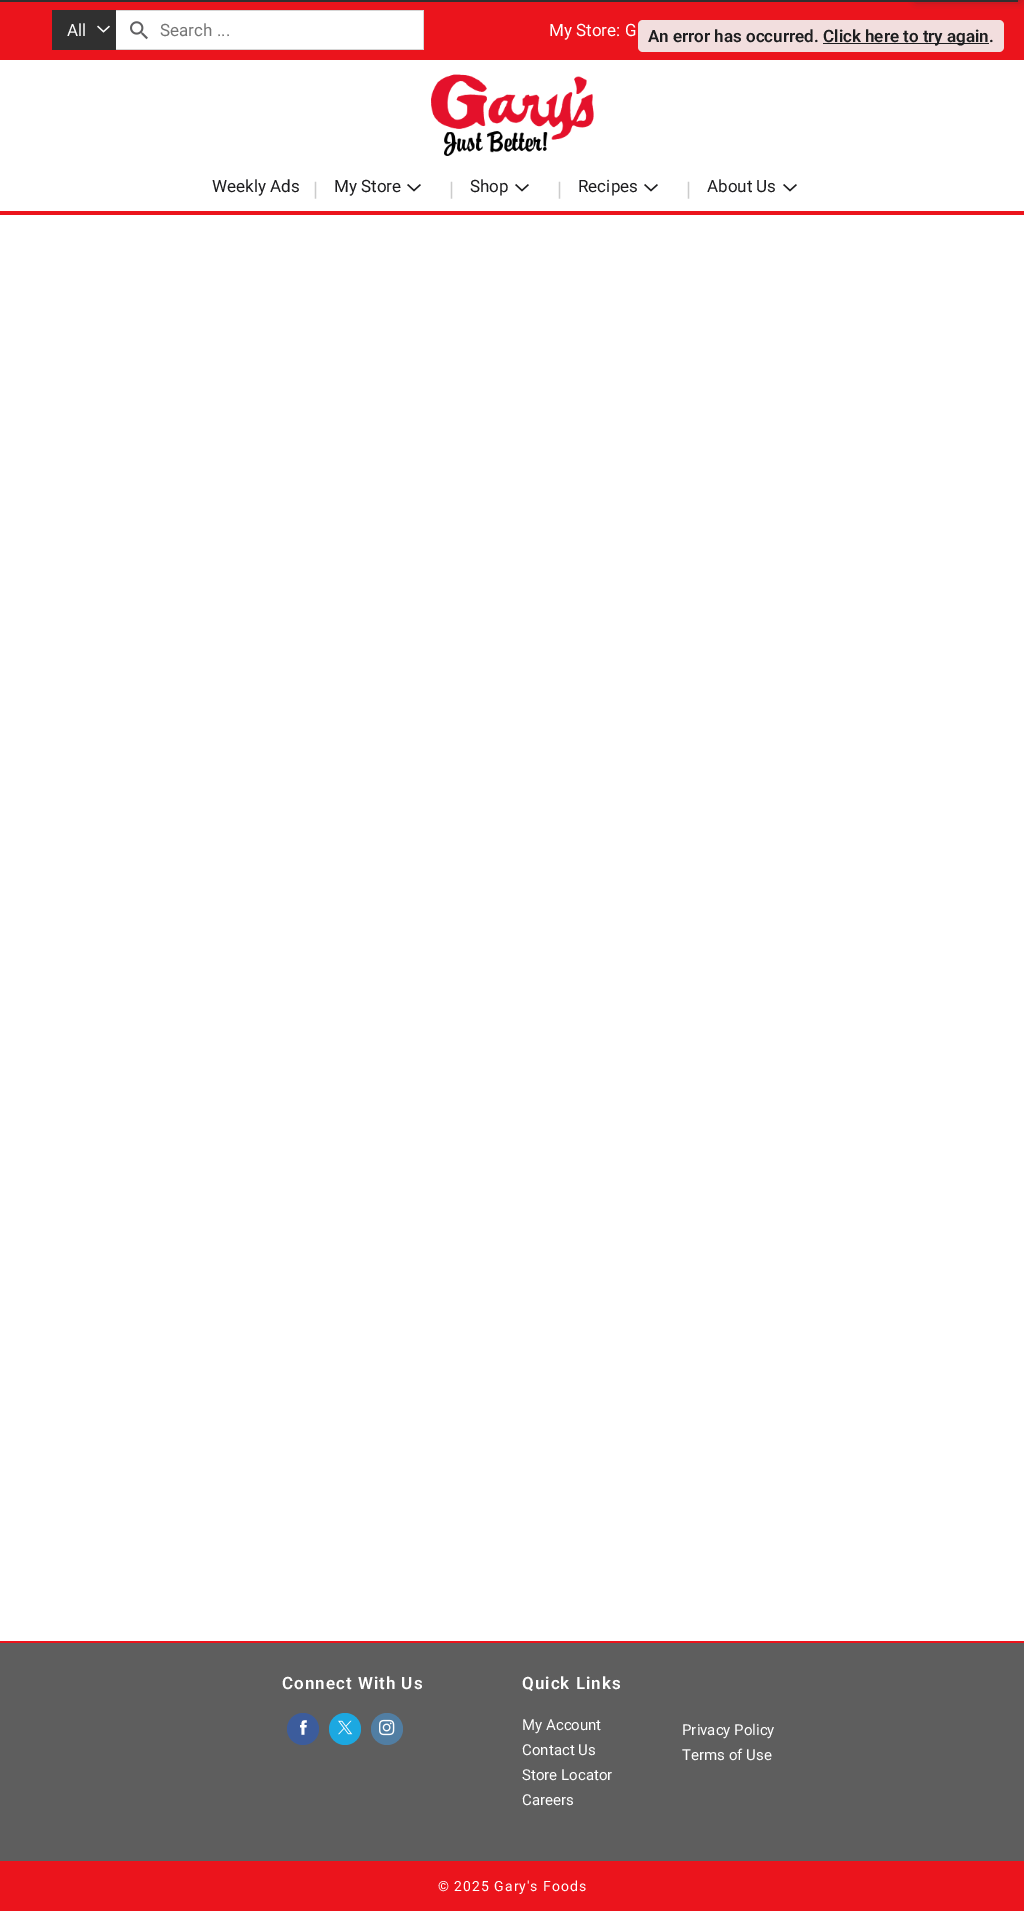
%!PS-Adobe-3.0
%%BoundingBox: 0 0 1024 1911
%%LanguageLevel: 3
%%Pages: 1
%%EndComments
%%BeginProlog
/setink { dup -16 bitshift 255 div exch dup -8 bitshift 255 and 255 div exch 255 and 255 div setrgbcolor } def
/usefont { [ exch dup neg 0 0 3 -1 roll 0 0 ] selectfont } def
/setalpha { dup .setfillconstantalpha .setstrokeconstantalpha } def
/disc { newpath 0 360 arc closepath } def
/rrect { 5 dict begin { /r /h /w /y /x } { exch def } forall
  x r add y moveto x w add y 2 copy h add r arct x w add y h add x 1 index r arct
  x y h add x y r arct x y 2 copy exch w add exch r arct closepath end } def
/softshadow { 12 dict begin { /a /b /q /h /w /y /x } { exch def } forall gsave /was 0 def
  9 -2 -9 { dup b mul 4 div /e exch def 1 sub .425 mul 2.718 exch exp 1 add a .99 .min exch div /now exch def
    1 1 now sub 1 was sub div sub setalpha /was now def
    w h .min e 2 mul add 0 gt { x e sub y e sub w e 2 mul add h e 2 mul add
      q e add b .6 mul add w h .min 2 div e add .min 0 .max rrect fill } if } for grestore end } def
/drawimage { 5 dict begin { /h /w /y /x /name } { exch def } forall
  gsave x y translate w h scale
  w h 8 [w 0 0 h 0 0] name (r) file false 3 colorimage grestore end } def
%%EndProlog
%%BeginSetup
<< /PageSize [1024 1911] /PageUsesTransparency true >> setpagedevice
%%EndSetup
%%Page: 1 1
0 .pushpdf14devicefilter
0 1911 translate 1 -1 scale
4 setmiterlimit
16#FFFFFF setink
0 0 1024 1911 rectfill
16#EB141C setink
0 0 1024 60 rectfill
16#303030 setink
52 10 64 40 rectfill
/Roboto-Regular 17 usefont
16#FFFFFF setink
67 36 moveto (All) show
(img1.raw) 97 25 13 8 drawimage
116 11 307 38 rectfill
(img2.raw) 130 21 18 19 drawimage
[
    [116 10 308 1 16#D6D6D6]
    [423 10 1 40 16#D6D6D6]
    [116 49 308 1 16#D6D6D6]
] { aload pop setink rectfill } forall
16#757575 setink
160 36 moveto (Search ...) show
16#FFFFFF setink
549 36 moveto (My Store: G) show
(img3.raw) 431 74 163 82 drawimage
16#EB141C setink
0 211 1024 4 rectfill
16#1D1D1F setink
212 192 moveto (Weekly Ads) show
/Roboto-Medium 20 usefont
16#CCCCCC setink
313 196 moveto (|) show
/Roboto-Regular 17 usefont
16#1D1D1F setink
334 192 moveto (My Store) show
(img4.raw) 407 184 14 8 drawimage
/Roboto-Medium 20 usefont
16#CCCCCC setink
449 196 moveto (|) show
/Roboto-Regular 17 usefont
16#1D1D1F setink
470 192 moveto (Shop) show
(img4.raw) 515 184 14 8 drawimage
/Roboto-Medium 20 usefont
16#CCCCCC setink
557 196 moveto (|) show
/Roboto-Regular 17 usefont
16#1D1D1F setink
578 192 moveto (Recipes) show
(img4.raw) 644 184 14 8 drawimage
/Roboto-Medium 20 usefont
16#CCCCCC setink
686 196 moveto (|) show
/Roboto-Regular 17 usefont
16#1D1D1F setink
707 192 moveto (About Us) show
(img4.raw) 783 184 14 8 drawimage
16#5E5E5E setink
0 1643 1024 218 rectfill
16#EB141C setink
0 1641 1024 2 rectfill
/Roboto-SemiBold 17 usefont
16#FFFFFF setink
282 1689 moveto 1 0 (Connect With Us) ashow
16#3C5C9C setink
303 1729 16 disc fill
(img5.raw) 300 1720 7 15 drawimage
16#1CA8E1 setink
345 1729 16 disc fill
(img6.raw) 338 1720 15 15 drawimage
16#517EA3 setink
387 1729 16 disc fill
(img7.raw) 379 1719 16 17 drawimage
16#FFFFFF setink
522 1689 moveto 1 0 (Quick Links) ashow
/Roboto-Regular 15 usefont
[
    [(My Account) 522 1730]
    [(Contact Us) 522 1755]
    [(Store Locator) 522 1780]
    [(Careers) 522 1805]
    [(Privacy Policy) 682 1735]
    [(Terms of Use) 682 1760]
] { aload pop moveto show } forall
16#EB141C setink
0 1861 1024 50 rectfill
/Roboto-Regular 14 usefont
16#FFFFFF setink
438 1891 moveto 1 0 (© 2025 Gary's Foods) ashow
16#303030 setink
0 0 1018 2 rectfill
918 -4 100 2 0 5 1 softshadow
16#F2DEDE setink
638 20 366 32 5 rrect fill
/Roboto-SemiBold 17 usefont
16#1D1D1F setink
648 42 moveto (An error has occurred.) show
823 43 166 1 rectfill
823 42 moveto (Click here to try again.) show
.poppdf14devicefilter showpage
%%EOF
